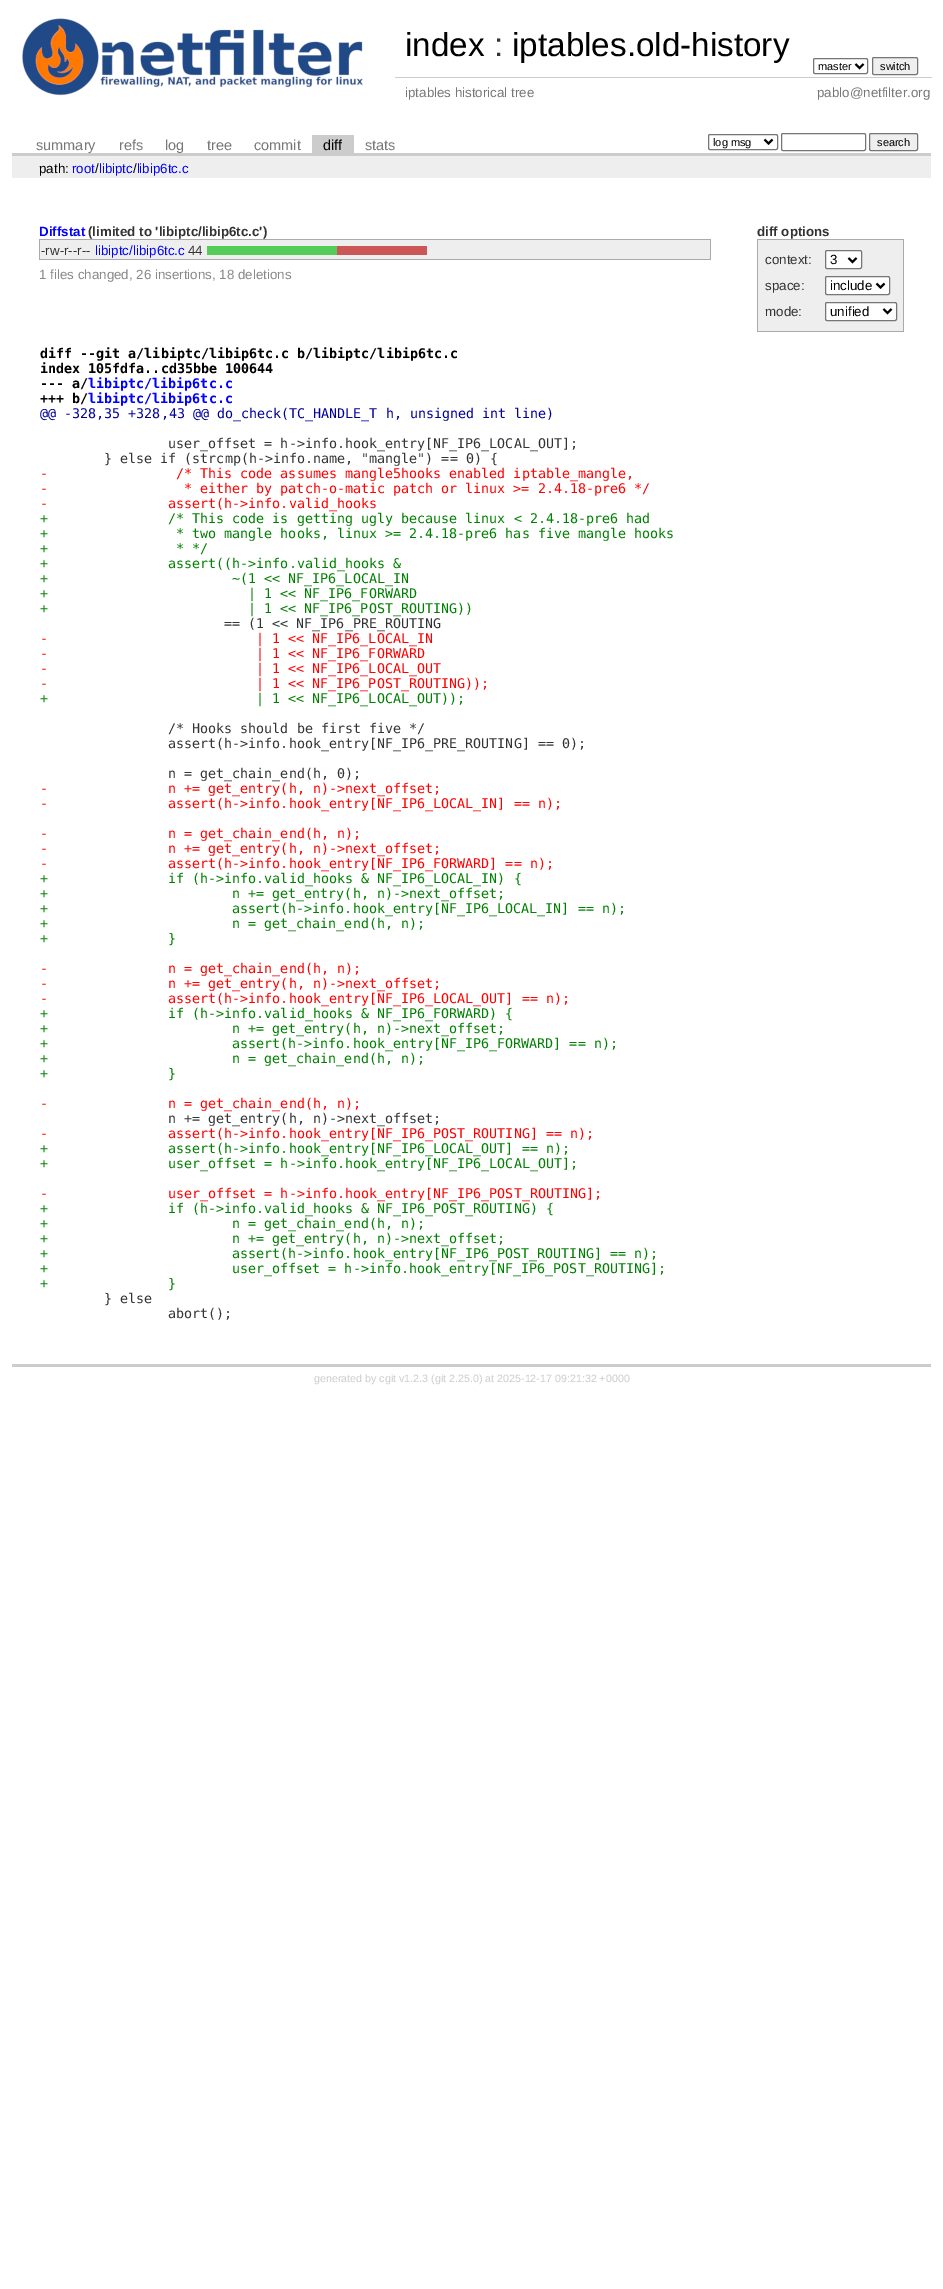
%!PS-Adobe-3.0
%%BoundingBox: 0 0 943 2289
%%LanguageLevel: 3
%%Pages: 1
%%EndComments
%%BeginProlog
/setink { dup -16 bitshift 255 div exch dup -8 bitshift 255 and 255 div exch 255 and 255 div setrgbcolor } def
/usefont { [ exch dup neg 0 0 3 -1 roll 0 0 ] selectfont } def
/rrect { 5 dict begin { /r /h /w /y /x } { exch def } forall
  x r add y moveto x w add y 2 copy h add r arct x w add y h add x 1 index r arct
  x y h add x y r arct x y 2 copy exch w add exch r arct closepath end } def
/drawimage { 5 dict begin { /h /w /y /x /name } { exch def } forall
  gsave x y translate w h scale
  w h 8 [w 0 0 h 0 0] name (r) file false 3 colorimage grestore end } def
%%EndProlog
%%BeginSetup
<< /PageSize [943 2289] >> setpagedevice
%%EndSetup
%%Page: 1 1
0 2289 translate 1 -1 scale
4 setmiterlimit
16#FFFFFF setink
0 0 943 2289 rectfill
(img1.raw) 22 18 341 78 drawimage
/LiberationSans-Regular 33.25 usefont
16#000000 setink
405 56 moveto (index) show
16#333333 setink
494 56 moveto (:) show
16#000000 setink
512 56 moveto (iptables.old-history) show
16#767676 setink
813.5 58.5 54 15 1.5 rrect stroke
16#000000 setink
2 setlinewidth
855.5 64 moveto 859.5 68 lineto 863.5 64 lineto stroke
/LiberationSans-Regular 11 usefont
818 70 moveto (master) show
16#EFEFEF setink
872.5 57.5 45 17 1.5 rrect gsave fill grestore
16#767676 setink
1 setlinewidth
stroke
16#000000 setink
880 70 moveto (switch) show
/LiberationSans-Regular 13.35 usefont
16#777777 setink
405 97 moveto (iptables historical tree) show
16#CCCCCC setink
395 77 537 1 rectfill
16#777777 setink
817 97 moveto (pablo@netfilter.org) show
16#CCCCCC setink
12 153 919 3 rectfill
/LiberationSans-Regular 14.5 usefont
16#777777 setink
[
    [(summary) 36 150]
    [(refs) 119 150]
    [(log) 165 150]
    [(tree) 207 150]
    [(commit) 254 150]
] { aload pop moveto show } forall
16#CCCCCC setink
312 135 42 18 rectfill
16#000000 setink
323 150 moveto (diff) show
16#777777 setink
365 150 moveto (stats) show
16#767676 setink
708.5 134.5 69 15 1.5 rrect stroke
16#000000 setink
2 setlinewidth
764.5 139.5 moveto 768.5 143.5 lineto 772.5 139.5 lineto stroke
/LiberationSans-Regular 11 usefont
713 146 moveto (log msg) show
16#767676 setink
1 setlinewidth
781.5 133.5 84 17 1.5 rrect stroke
16#EFEFEF setink
869.5 133.5 48 17 1.5 rrect gsave fill grestore
16#767676 setink
stroke
16#000000 setink
877 146 moveto (search) show
16#EEEEEE setink
12 156 919 22 rectfill
/LiberationSans-Regular 13.35 usefont
16#000000 setink
39 173 moveto (path:) show
16#0000FF setink
72 173 moveto (root libiptc libip6tc.c) show
16#000000 setink
95 173 moveto (/) show
133 173 moveto (/) show
16#CCCCCC setink
12 1364 919 3 rectfill
/LiberationSans-Bold 13.35 usefont
16#0000FF setink
39 236 moveto (Diffstat) show
16#333333 setink
88 236 moveto (\(limited to 'libiptc/libip6tc.c'\)) show
757 236 moveto (diff options) show
[
    [758 240 145 91 16#EEEEEE]
    [757 239 147 1 16#AAAAAA]
    [903 239 1 93 16#AAAAAA]
    [757 331 147 1 16#AAAAAA]
    [757 239 1 93 16#AAAAAA]
] { aload pop setink rectfill } forall
/LiberationSans-Regular 13.35 usefont
16#333333 setink
765 264 moveto (context:) show
16#FFFFFF setink
825.5 250.5 36 18 1.5 rrect gsave fill grestore
16#767676 setink
stroke
16#000000 setink
2 setlinewidth
848.5 258 moveto 852.5 262 lineto 856.5 258 lineto stroke
830 264 moveto (3) show
16#333333 setink
765 290 moveto (space:) show
16#FFFFFF setink
825.5 276.5 64 18 1.5 rrect gsave fill grestore
16#767676 setink
1 setlinewidth
stroke
16#000000 setink
2 setlinewidth
876.5 283.5 moveto 880.5 287.5 lineto 884.5 283.5 lineto stroke
830 290 moveto (include) show
16#333333 setink
765 316 moveto (mode:) show
16#FFFFFF setink
825.5 302.5 71 18 1.5 rrect gsave fill grestore
16#767676 setink
1 setlinewidth
stroke
16#000000 setink
2 setlinewidth
883.5 309 moveto 887.5 313 lineto 891.5 309 lineto stroke
830 316 moveto (unified) show
[
    [40 240 670 19 16#EEEEEE]
    [39 239 672 1 16#AAAAAA]
    [710 239 1 21 16#AAAAAA]
    [39 259 672 1 16#AAAAAA]
    [39 239 1 21 16#AAAAAA]
] { aload pop setink rectfill } forall
16#333333 setink
41 255 moveto (-rw-r--r--) show
16#0000FF setink
95 255 moveto (libiptc/libip6tc.c) show
16#333333 setink
188 255 moveto (44) show
16#55CC55 setink
207 246 130 9 rectfill
16#CC5555 setink
337 246 90 9 rectfill
16#888888 setink
39 279 moveto (1 files changed, 26 insertions, 18 deletions) show
/DejaVuSansMono-Bold 13.35 usefont
16#000000 setink
[
    [(diff --git a/libiptc/libip6tc.c b/libiptc/libip6tc.c) 40 358]
    [(index 105fdfa..cd35bbe 100644) 40 373]
    [(--- a/) 40 388]
] { aload pop moveto show } forall
16#0000FF setink
88 388 moveto (libiptc/libip6tc.c) show
16#000000 setink
40 403 moveto (+++ b/) show
16#0000FF setink
88 403 moveto (libiptc/libip6tc.c) show
/DejaVuSansMono-Regular 13.35 usefont
16#000099 setink
40 418 moveto (@@ -328,35 +328,43 @@ do_check\(TC_HANDLE_T h, unsigned int line\)) show
16#333333 setink
168 448 moveto (user_offset = h->info.hook_entry[NF_IP6_LOCAL_OUT];) show
104 463 moveto (} else if \(strcmp\(h->info.name, "mangle"\) == 0\) {) show
16#FF0000 setink
[
    [(-) 40 478]
    [(/* This code assumes mangle5hooks enabled iptable_mangle,) 176 478]
    [(-) 40 493]
    [(* either by patch-o-matic patch or linux >= 2.4.18-pre6 */) 184 493]
    [(-) 40 508]
    [(assert\(h->info.valid_hooks) 168 508]
] { aload pop moveto show } forall
16#008000 setink
[
    [(+) 40 523]
    [(/* This code is getting ugly because linux < 2.4.18-pre6 had) 168 523]
    [(+) 40 538]
    [(* two mangle hooks, linux >= 2.4.18-pre6 has five mangle hooks) 176 538]
    [(+) 40 553]
    [(* */) 176 553]
    [(+) 40 568]
    [(assert\(\(h->info.valid_hooks &) 168 568]
    [(+) 40 583]
    [(~\(1 << NF_IP6_LOCAL_IN) 232 583]
    [(+) 40 598]
    [(| 1 << NF_IP6_FORWARD) 248 598]
    [(+) 40 613]
    [(| 1 << NF_IP6_POST_ROUTING\)\)) 248 613]
] { aload pop moveto show } forall
16#333333 setink
224 628 moveto (== \(1 << NF_IP6_PRE_ROUTING) show
16#FF0000 setink
[
    [(-) 40 643]
    [(| 1 << NF_IP6_LOCAL_IN) 256 643]
    [(-) 40 658]
    [(| 1 << NF_IP6_FORWARD) 256 658]
    [(-) 40 673]
    [(| 1 << NF_IP6_LOCAL_OUT) 256 673]
    [(-) 40 688]
    [(| 1 << NF_IP6_POST_ROUTING\)\);) 256 688]
] { aload pop moveto show } forall
16#008000 setink
40 703 moveto (+) show
256 703 moveto (| 1 << NF_IP6_LOCAL_OUT\)\);) show
16#333333 setink
[
    [(/* Hooks should be first five */) 168 733]
    [(assert\(h->info.hook_entry[NF_IP6_PRE_ROUTING] == 0\);) 168 748]
    [(n = get_chain_end\(h, 0\);) 168 778]
] { aload pop moveto show } forall
16#FF0000 setink
[
    [(-) 40 793]
    [(n += get_entry\(h, n\)->next_offset;) 168 793]
    [(-) 40 808]
    [(assert\(h->info.hook_entry[NF_IP6_LOCAL_IN] == n\);) 168 808]
    [(-) 40 838]
    [(n = get_chain_end\(h, n\);) 168 838]
    [(-) 40 853]
    [(n += get_entry\(h, n\)->next_offset;) 168 853]
    [(-) 40 868]
    [(assert\(h->info.hook_entry[NF_IP6_FORWARD] == n\);) 168 868]
] { aload pop moveto show } forall
16#008000 setink
[
    [(+) 40 883]
    [(if \(h->info.valid_hooks & NF_IP6_LOCAL_IN\) {) 168 883]
    [(+) 40 898]
    [(n += get_entry\(h, n\)->next_offset;) 232 898]
    [(+) 40 913]
    [(assert\(h->info.hook_entry[NF_IP6_LOCAL_IN] == n\);) 232 913]
    [(+) 40 928]
    [(n = get_chain_end\(h, n\);) 232 928]
    [(+) 40 943]
    [(}) 168 943]
] { aload pop moveto show } forall
16#FF0000 setink
[
    [(-) 40 973]
    [(n = get_chain_end\(h, n\);) 168 973]
    [(-) 40 988]
    [(n += get_entry\(h, n\)->next_offset;) 168 988]
    [(-) 40 1003]
    [(assert\(h->info.hook_entry[NF_IP6_LOCAL_OUT] == n\);) 168 1003]
] { aload pop moveto show } forall
16#008000 setink
[
    [(+) 40 1018]
    [(if \(h->info.valid_hooks & NF_IP6_FORWARD\) {) 168 1018]
    [(+) 40 1033]
    [(n += get_entry\(h, n\)->next_offset;) 232 1033]
    [(+) 40 1048]
    [(assert\(h->info.hook_entry[NF_IP6_FORWARD] == n\);) 232 1048]
    [(+) 40 1063]
    [(n = get_chain_end\(h, n\);) 232 1063]
    [(+) 40 1078]
    [(}) 168 1078]
] { aload pop moveto show } forall
16#FF0000 setink
40 1108 moveto (-) show
168 1108 moveto (n = get_chain_end\(h, n\);) show
16#333333 setink
168 1123 moveto (n += get_entry\(h, n\)->next_offset;) show
16#FF0000 setink
40 1138 moveto (-) show
168 1138 moveto (assert\(h->info.hook_entry[NF_IP6_POST_ROUTING] == n\);) show
16#008000 setink
[
    [(+) 40 1153]
    [(assert\(h->info.hook_entry[NF_IP6_LOCAL_OUT] == n\);) 168 1153]
    [(+) 40 1168]
    [(user_offset = h->info.hook_entry[NF_IP6_LOCAL_OUT];) 168 1168]
] { aload pop moveto show } forall
16#FF0000 setink
40 1198 moveto (-) show
168 1198 moveto (user_offset = h->info.hook_entry[NF_IP6_POST_ROUTING];) show
16#008000 setink
[
    [(+) 40 1213]
    [(if \(h->info.valid_hooks & NF_IP6_POST_ROUTING\) {) 168 1213]
    [(+) 40 1228]
    [(n = get_chain_end\(h, n\);) 232 1228]
    [(+) 40 1243]
    [(n += get_entry\(h, n\)->next_offset;) 232 1243]
    [(+) 40 1258]
    [(assert\(h->info.hook_entry[NF_IP6_POST_ROUTING] == n\);) 232 1258]
    [(+) 40 1273]
    [(user_offset = h->info.hook_entry[NF_IP6_POST_ROUTING];) 232 1273]
    [(+) 40 1288]
    [(}) 168 1288]
] { aload pop moveto show } forall
16#333333 setink
104 1303 moveto (} else) show
168 1318 moveto (abort\(\);) show
/LiberationSans-Regular 10.7 usefont
16#CCCCCC setink
314 1382 moveto (generated by cgit v1.2.3 \(git 2.25.0\) at 2025-12-17 09:21:32 +0000) show
showpage
%%EOF
